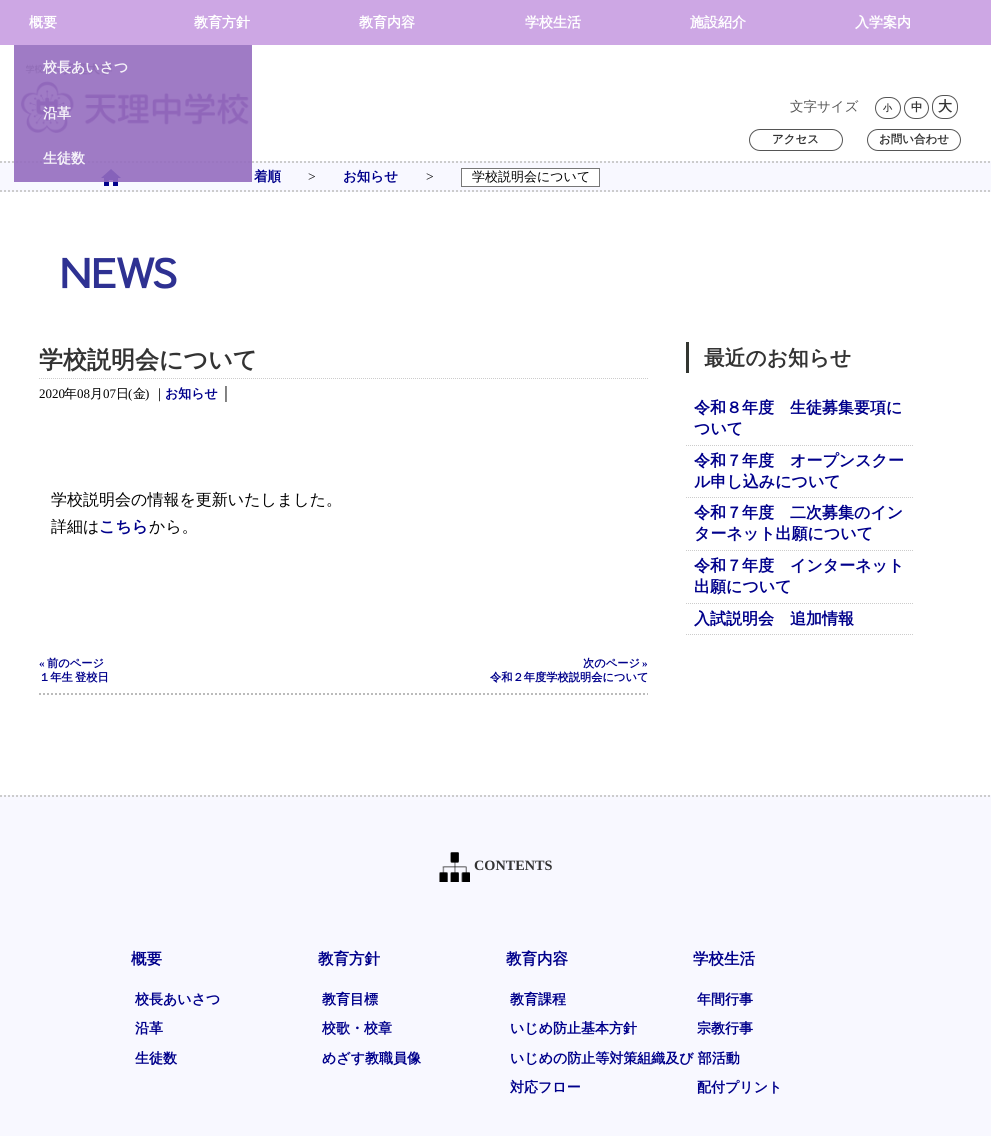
import math
import cairo


def use_color(cr, r, g, b):
  cr.set_source_rgb(r / 255, g / 255, b / 255)

def text(cr, x, y, s, family, size, color, bold=False, italic=False):
  cr.select_font_face(family, cairo.FONT_SLANT_ITALIC if italic else cairo.FONT_SLANT_NORMAL, cairo.FONT_WEIGHT_BOLD if bold else cairo.FONT_WEIGHT_NORMAL)
  cr.set_font_size(size)
  use_color(cr, *color)
  cr.move_to(x, y)
  cr.show_text(s)

def spaced_text(cr, x, y, s, letter, word):
  cr.move_to(x, y)
  for ch in s:
    cr.show_text(ch)
    cr.rel_move_to(letter + word * (ch == ' '), 0)

def box(cr, x, y, w, h, *color):
  use_color(cr, *color)
  cr.rectangle(x, y, w, h)
  cr.fill()

def round_rect(cr, x, y, w, h, r):
  cr.new_sub_path()
  for i, (u, v) in enumerate([(x + w - r, y + h - r), (x + r, y + h - r), (x + r, y + r), (x + w - r, y + r)]):
    cr.arc(u, v, r, i * math.pi / 2, (i + 1) * math.pi / 2)
  cr.close_path()

def picture(cr, path, x, y, w, h):
  cr.save()
  cr.set_source_surface(cairo.ImageSurface.create_from_png(path), x, y)
  cr.rectangle(x, y, w, h)
  cr.fill()
  cr.restore()

def draw(cr):
  use_color(cr, 255, 255, 255)
  cr.paint()
  box(cr, 0, 0, 991, 45, 205, 167, 228)
  picture(cr, "img_01.png", 20, 63, 229, 70)
  box(cr, 0, 161, 991, 31, 248, 248, 255)
  cr.new_path()
  cr.move_to(0, 162)
  cr.line_to(991, 162)
  use_color(cr, 204, 204, 204)
  cr.set_dash([2, 2])
  cr.stroke()
  picture(cr, "img_02.png", 101, 169, 20, 17)
  cr.set_source_rgba(0.584, 0.427, 0.749, 0.9)
  cr.rectangle(14, 45, 238, 137)
  cr.fill()
  round_rect(cr, 875.5, 97.5, 25, 21, 10.5)
  use_color(cr, 85, 85, 85)
  cr.set_line_width(1)
  cr.set_dash([])
  cr.stroke()
  round_rect(cr, 904.5, 97.5, 24, 21, 10.5)
  cr.stroke()
  round_rect(cr, 932.5, 95.5, 25, 23, 10.5)
  cr.stroke()
  round_rect(cr, 749.5, 129.5, 93, 21, 10.5)
  cr.stroke()
  round_rect(cr, 867.5, 129.5, 93, 21, 10.5)
  cr.stroke()
  cr.new_path()
  cr.move_to(0, 191)
  cr.line_to(991, 191)
  use_color(cr, 204, 204, 204)
  cr.set_line_width(2)
  cr.set_dash([2, 2])
  cr.stroke()
  use_color(cr, 255, 255, 255)
  cr.rectangle(461.5, 168.5, 138, 18)
  cr.fill_preserve()
  use_color(cr, 119, 119, 119)
  cr.set_line_width(1)
  cr.set_dash([])
  cr.stroke()
  cr.new_path()
  cr.move_to(39, 378.5)
  cr.line_to(648, 378.5)
  use_color(cr, 204, 204, 204)
  cr.set_dash([1, 1])
  cr.stroke()
  cr.new_path()
  cr.move_to(39, 694)
  cr.line_to(648, 694)
  use_color(cr, 187, 187, 187)
  cr.set_line_width(2)
  cr.set_dash([2, 2])
  cr.stroke()
  box(cr, 686, 342, 3, 31, 51, 54, 49)
  cr.new_path()
  cr.move_to(686, 445.5)
  cr.line_to(914, 445.5)
  use_color(cr, 204, 204, 204)
  cr.set_line_width(1)
  cr.set_dash([1, 1])
  cr.stroke()
  cr.new_path()
  cr.move_to(686, 497.5)
  cr.line_to(914, 497.5)
  cr.stroke()
  cr.new_path()
  cr.move_to(686, 550.5)
  cr.line_to(914, 550.5)
  cr.stroke()
  cr.new_path()
  cr.move_to(686, 603.5)
  cr.line_to(914, 603.5)
  cr.stroke()
  cr.new_path()
  cr.move_to(686, 634.5)
  cr.line_to(914, 634.5)
  cr.stroke()
  box(cr, 0, 795, 991, 341, 248, 248, 255)
  cr.new_path()
  cr.move_to(0, 796)
  cr.line_to(991, 796)
  use_color(cr, 204, 204, 204)
  cr.set_line_width(2)
  cr.set_dash([2, 2])
  cr.stroke()
  picture(cr, "img_03.png", 439, 852, 31, 30)
  text(cr, 29, 27, "概要", "WenQuanYi Zen Hei", 14, (255, 255, 255), bold=True)
  text(cr, 43, 72, "校長あいさつ", "WenQuanYi Zen Hei", 14, (245, 242, 249), bold=True)
  text(cr, 43, 118, "沿革", "WenQuanYi Zen Hei", 14, (245, 242, 249), bold=True)
  text(cr, 43, 163, "生徒数", "WenQuanYi Zen Hei", 14, (245, 242, 249), bold=True)
  text(cr, 194, 27, "教育方針", "WenQuanYi Zen Hei", 14, (255, 255, 255), bold=True)
  text(cr, 359, 27, "教育内容", "WenQuanYi Zen Hei", 14, (255, 255, 255), bold=True)
  text(cr, 525, 27, "学校生活", "WenQuanYi Zen Hei", 14, (255, 255, 255), bold=True)
  text(cr, 690, 27, "施設紹介", "WenQuanYi Zen Hei", 14, (255, 255, 255), bold=True)
  text(cr, 855, 27, "入学案内", "WenQuanYi Zen Hei", 14, (255, 255, 255), bold=True)
  text(cr, 790, 111, "文字サイズ", "WenQuanYi Zen Hei Medium", 13.5, (85, 85, 85))
  text(cr, 883, 111, "小", "WenQuanYi Zen Hei", 9, (51, 51, 51), bold=True)
  text(cr, 911, 111, "中", "WenQuanYi Zen Hei", 11.5, (51, 51, 51), bold=True)
  text(cr, 938, 111, "大", "WenQuanYi Zen Hei", 14, (51, 51, 51), bold=True)
  text(cr, 772, 143, "アクセス", "WenQuanYi Zen Hei", 11.5, (51, 51, 51), bold=True)
  text(cr, 879, 143, "お問い合わせ", "WenQuanYi Zen Hei", 11.5, (51, 51, 51), bold=True)
  text(cr, 254, 181, "着順", "WenQuanYi Zen Hei", 13.5, (0, 0, 139), bold=True)
  text(cr, 308, 181, ">", "Liberation Serif", 13.5, (0, 0, 0))
  text(cr, 343, 181, "お知らせ", "WenQuanYi Zen Hei", 13.5, (0, 0, 139), bold=True)
  text(cr, 426, 181, ">", "Liberation Serif", 13.5, (0, 0, 0))
  text(cr, 472, 181, "学校説明会について", "WenQuanYi Zen Hei Medium", 13, (0, 0, 0))
  text(cr, 60, 288, "NEWS", "Sawarabi Gothic", 40, (46, 49, 146), bold=True)
  text(cr, 39, 368, "学校説明会について", "WenQuanYi Zen Hei", 24, (51, 51, 51), bold=True)
  text(cr, 39, 398, "2020", "Liberation Serif", 13, (0, 0, 0))
  text(cr, 64, 398, "年", "WenQuanYi Zen Hei Medium", 13, (0, 0, 0))
  text(cr, 77, 398, "08", "Liberation Serif", 13, (0, 0, 0))
  text(cr, 90, 398, "月", "WenQuanYi Zen Hei Medium", 13, (0, 0, 0))
  text(cr, 103, 398, "07", "Liberation Serif", 13, (0, 0, 0))
  text(cr, 116, 398, "日", "WenQuanYi Zen Hei Medium", 13, (0, 0, 0))
  text(cr, 128, 398, "(", "Liberation Serif", 13, (0, 0, 0))
  text(cr, 133, 398, "金", "WenQuanYi Zen Hei Medium", 13, (0, 0, 0))
  text(cr, 145, 398, ")", "Liberation Serif", 13, (0, 0, 0))
  text(cr, 153, 398, "｜", "WenQuanYi Zen Hei Medium", 13, (0, 0, 0))
  text(cr, 165, 398, "お知らせ", "WenQuanYi Zen Hei", 13, (0, 0, 139), bold=True)
  text(cr, 218, 398, "｜", "WenQuanYi Zen Hei Medium", 16, (0, 0, 0))
  text(cr, 51, 505, "学校説明会の情報を更新いたしました。", "WenQuanYi Zen Hei Medium", 16, (0, 0, 0))
  text(cr, 51, 532, "詳細は", "WenQuanYi Zen Hei Medium", 16, (0, 0, 0))
  text(cr, 99, 532, "こちら", "WenQuanYi Zen Hei", 16, (0, 0, 139), bold=True)
  text(cr, 149, 532, "から。", "WenQuanYi Zen Hei Medium", 16, (0, 0, 0))
  text(cr, 39, 667, "«", "Liberation Serif", 11.25, (0, 0, 139), bold=True)
  text(cr, 47, 667, "前のページ", "WenQuanYi Zen Hei", 11.25, (0, 0, 139), bold=True)
  spaced_text(cr, 39, 681, "１年生 登校日", 0, -1)
  text(cr, 583, 667, "次のページ", "WenQuanYi Zen Hei", 11.25, (0, 0, 139), bold=True)
  text(cr, 642, 667, "»", "Liberation Serif", 11.25, (0, 0, 139), bold=True)
  text(cr, 490, 681, "令和２年度学校説明会について", "WenQuanYi Zen Hei", 11.25, (0, 0, 139), bold=True)
  text(cr, 704, 365, "最近のお知らせ", "WenQuanYi Zen Hei", 20.75, (51, 51, 51), bold=True)
  text(cr, 694, 413, "令和８年度　生徒募集要項に", "WenQuanYi Zen Hei", 16, (0, 0, 139), bold=True)
  text(cr, 694, 434, "ついて", "WenQuanYi Zen Hei", 16, (0, 0, 139), bold=True)
  text(cr, 694, 466, "令和７年度　オープンスクー", "WenQuanYi Zen Hei", 16, (0, 0, 139), bold=True)
  text(cr, 694, 487, "ル申し込みについて", "WenQuanYi Zen Hei", 16, (0, 0, 139), bold=True)
  text(cr, 694, 518, "令和７年度　二次募集のイン", "WenQuanYi Zen Hei", 16, (0, 0, 139), bold=True)
  text(cr, 694, 539, "ターネット出願について", "WenQuanYi Zen Hei", 16, (0, 0, 139), bold=True)
  text(cr, 694, 571, "令和７年度　インターネット", "WenQuanYi Zen Hei", 16, (0, 0, 139), bold=True)
  text(cr, 694, 592, "出願について", "WenQuanYi Zen Hei", 16, (0, 0, 139), bold=True)
  text(cr, 694, 624, "入試説明会　追加情報", "WenQuanYi Zen Hei", 16, (0, 0, 139), bold=True)
  text(cr, 474, 870, "CONTENTS", "Liberation Serif", 14.25, (51, 51, 51), bold=True)
  text(cr, 131, 964, "概要", "WenQuanYi Zen Hei", 15.5, (0, 0, 139), bold=True)
  text(cr, 135, 1004, "校長あいさつ", "WenQuanYi Zen Hei", 14, (0, 0, 139), bold=True)
  text(cr, 135, 1033, "沿革", "WenQuanYi Zen Hei", 14, (0, 0, 139), bold=True)
  text(cr, 135, 1063, "生徒数", "WenQuanYi Zen Hei", 14, (0, 0, 139), bold=True)
  text(cr, 318, 964, "教育方針", "WenQuanYi Zen Hei", 15.5, (0, 0, 139), bold=True)
  text(cr, 322, 1004, "教育目標", "WenQuanYi Zen Hei", 14, (0, 0, 139), bold=True)
  text(cr, 322, 1033, "校歌・校章", "WenQuanYi Zen Hei", 14, (0, 0, 139), bold=True)
  text(cr, 322, 1063, "めざす教職員像", "WenQuanYi Zen Hei", 14, (0, 0, 139), bold=True)
  text(cr, 506, 964, "教育内容", "WenQuanYi Zen Hei", 15.5, (0, 0, 139), bold=True)
  text(cr, 510, 1004, "教育課程", "WenQuanYi Zen Hei", 14, (0, 0, 139), bold=True)
  text(cr, 510, 1033, "いじめ防止基本方針", "WenQuanYi Zen Hei", 14, (0, 0, 139), bold=True)
  text(cr, 510, 1063, "いじめの防止等対策組織及び 部活動", "WenQuanYi Zen Hei", 14, (0, 0, 139), bold=True)
  text(cr, 510, 1092, "対応フロー", "WenQuanYi Zen Hei", 14, (0, 0, 139), bold=True)
  text(cr, 693, 964, "学校生活", "WenQuanYi Zen Hei", 15.5, (0, 0, 139), bold=True)
  text(cr, 697, 1004, "年間行事", "WenQuanYi Zen Hei", 14, (0, 0, 139), bold=True)
  text(cr, 697, 1033, "宗教行事", "WenQuanYi Zen Hei", 14, (0, 0, 139), bold=True)
  text(cr, 697, 1092, "配付プリント", "WenQuanYi Zen Hei", 14, (0, 0, 139), bold=True)


surface = cairo.ImageSurface(cairo.FORMAT_RGB24, 991, 1136)
cr = cairo.Context(surface)
options = cairo.FontOptions()
options.set_hint_metrics(cairo.HINT_METRICS_OFF)
options.set_hint_style(cairo.HINT_STYLE_NONE)
cr.set_font_options(options)
cr.set_miter_limit(4)
draw(cr)
surface.write_to_png("out.png")
